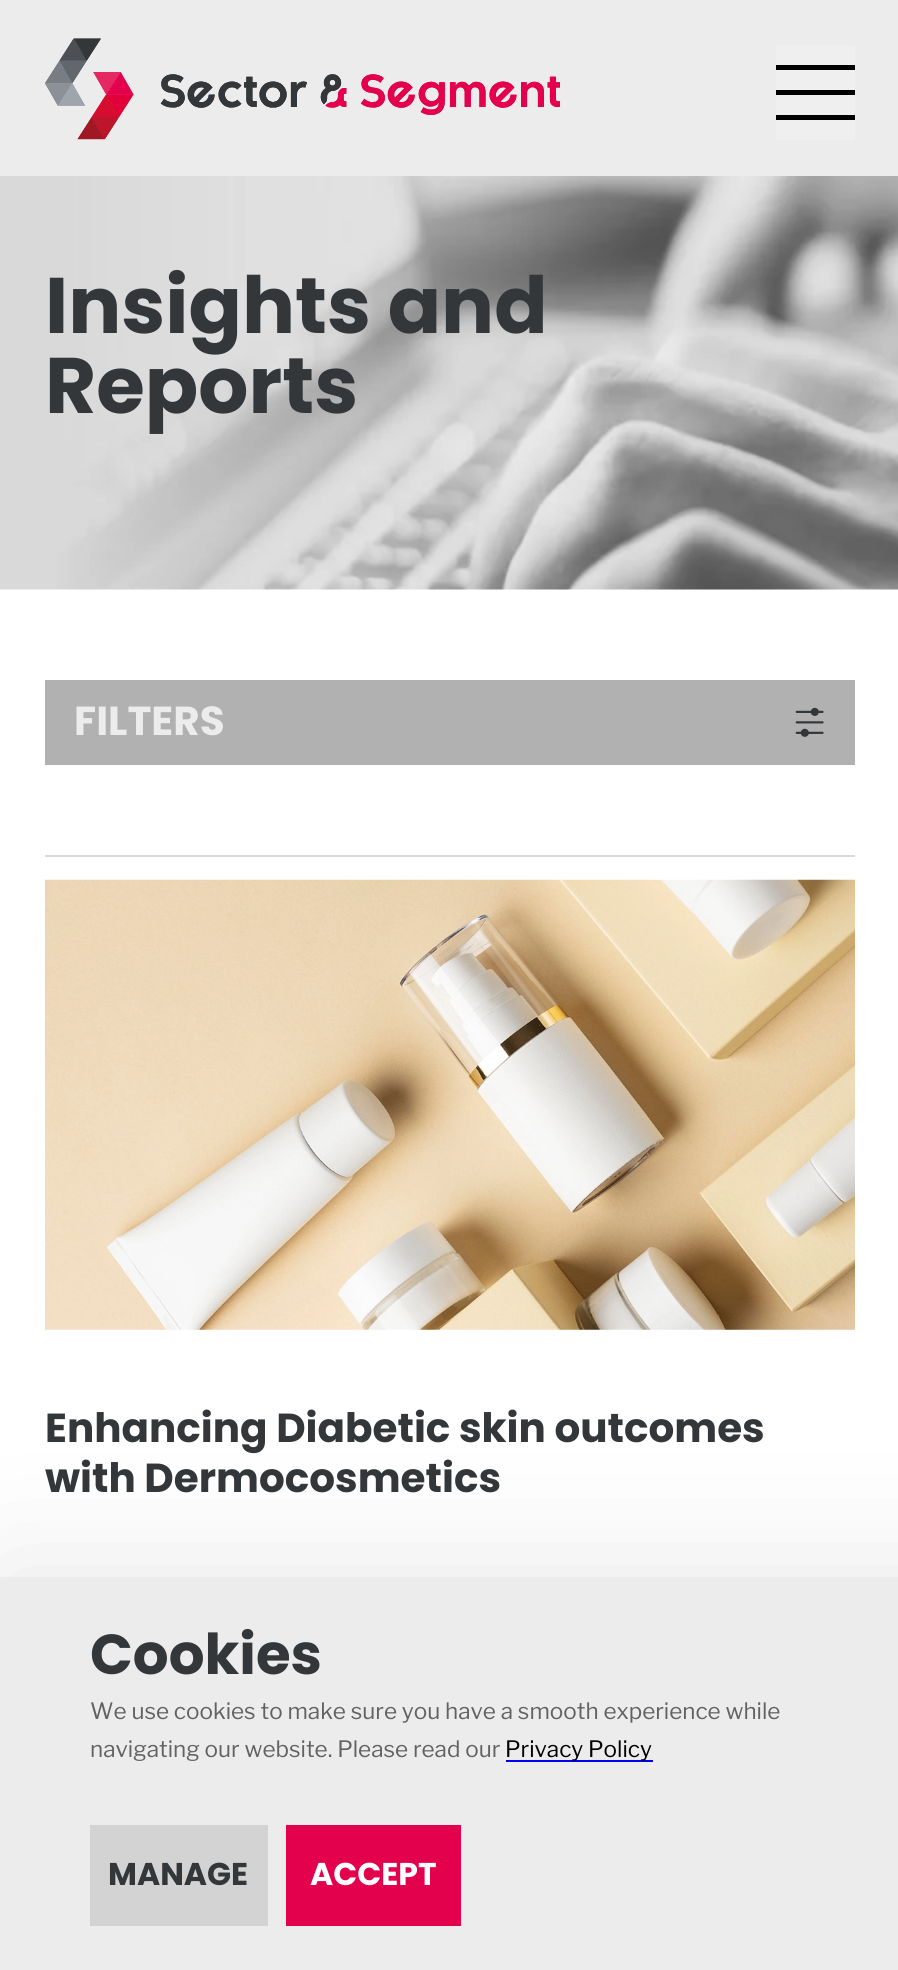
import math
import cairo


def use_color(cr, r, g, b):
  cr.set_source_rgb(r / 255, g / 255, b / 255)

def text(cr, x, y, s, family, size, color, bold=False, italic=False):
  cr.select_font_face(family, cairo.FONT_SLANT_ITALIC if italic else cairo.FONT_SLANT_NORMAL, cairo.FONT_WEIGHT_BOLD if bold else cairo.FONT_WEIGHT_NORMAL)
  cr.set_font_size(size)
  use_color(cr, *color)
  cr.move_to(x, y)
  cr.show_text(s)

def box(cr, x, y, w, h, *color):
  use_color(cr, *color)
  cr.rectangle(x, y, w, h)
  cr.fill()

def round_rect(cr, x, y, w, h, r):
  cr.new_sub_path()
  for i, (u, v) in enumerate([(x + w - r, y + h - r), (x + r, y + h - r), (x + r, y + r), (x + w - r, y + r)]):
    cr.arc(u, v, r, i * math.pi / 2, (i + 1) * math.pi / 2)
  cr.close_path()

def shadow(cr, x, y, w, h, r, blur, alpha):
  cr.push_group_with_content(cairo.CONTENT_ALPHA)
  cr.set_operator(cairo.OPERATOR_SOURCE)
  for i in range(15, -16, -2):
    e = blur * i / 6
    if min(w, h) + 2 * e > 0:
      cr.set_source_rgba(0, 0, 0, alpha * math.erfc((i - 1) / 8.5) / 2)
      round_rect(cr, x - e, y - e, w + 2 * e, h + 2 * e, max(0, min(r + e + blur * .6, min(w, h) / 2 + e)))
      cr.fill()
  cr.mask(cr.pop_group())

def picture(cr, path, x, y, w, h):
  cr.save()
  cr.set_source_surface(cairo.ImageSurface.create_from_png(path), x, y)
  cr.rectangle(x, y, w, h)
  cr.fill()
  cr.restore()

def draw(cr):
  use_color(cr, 255, 255, 255)
  cr.paint()
  box(cr, 0, 0, 898, 176, 236, 236, 236)
  picture(cr, "img_01.png", 45, 38, 515, 102)
  box(cr, 776, 45, 79, 95, 239, 239, 239)
  box(cr, 776, 65, 79, 5, 0, 0, 0)
  box(cr, 776, 90, 79, 5, 0, 0, 0)
  box(cr, 776, 115, 79, 5, 0, 0, 0)
  picture(cr, "img_02.png", 0, 176, 898, 414)
  box(cr, 45, 680, 810, 85, 177, 177, 177)
  picture(cr, "img_03.png", 795, 707, 29, 30)
  box(cr, 45, 855, 810, 2, 217, 217, 217)
  picture(cr, "img_04.png", 45, 879, 810, 451)
  use_color(cr, 0, 0, 0)
  shadow(cr, 0, 1577, 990, 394, 0, 67.5, 0.1)
  box(cr, 0, 1577, 898, 393, 236, 236, 236)
  box(cr, 506, 1760, 147, 2, 0, 0, 238)
  box(cr, 90, 1825, 178, 101, 211, 211, 211)
  box(cr, 286, 1825, 175, 101, 227, 0, 76)
  text(cr, 45, 333, "Insights and", "Poppins", 78.75, (51, 55, 57), bold=True)
  text(cr, 45, 413, "Reports", "Poppins", 78.75, (51, 55, 57), bold=True)
  text(cr, 74, 735, "FILTERS", "Poppins", 40.5, (236, 236, 236), bold=True)
  text(cr, 45, 1442, "Enhancing Diabetic skin outcomes", "Poppins", 40.5, (51, 55, 57), bold=True)
  text(cr, 45, 1492, "with Dermocosmetics", "Poppins", 40.5, (51, 55, 57), bold=True)
  text(cr, 90, 1674, "Cookies", "Poppins", 56.25, (51, 55, 57), bold=True)
  text(cr, 90, 1719, "We use cookies to make sure you have a smooth experience while", "Libre Franklin", 22.5, (98, 98, 98))
  text(cr, 90, 1757, "navigating our website. Please read our", "Libre Franklin", 22.5, (98, 98, 98))
  text(cr, 505, 1757, "Privacy Policy", "Libre Franklin", 22.5, (0, 0, 0))
  text(cr, 108, 1885, "MANAGE", "Poppins", 31.5, (51, 55, 57), bold=True)
  text(cr, 310, 1885, "ACCEPT", "Poppins", 31.5, (255, 255, 255), bold=True)


surface = cairo.ImageSurface(cairo.FORMAT_RGB24, 898, 1970)
cr = cairo.Context(surface)
options = cairo.FontOptions()
options.set_hint_metrics(cairo.HINT_METRICS_OFF)
options.set_hint_style(cairo.HINT_STYLE_NONE)
cr.set_font_options(options)
cr.set_miter_limit(4)
draw(cr)
surface.write_to_png("out.png")
